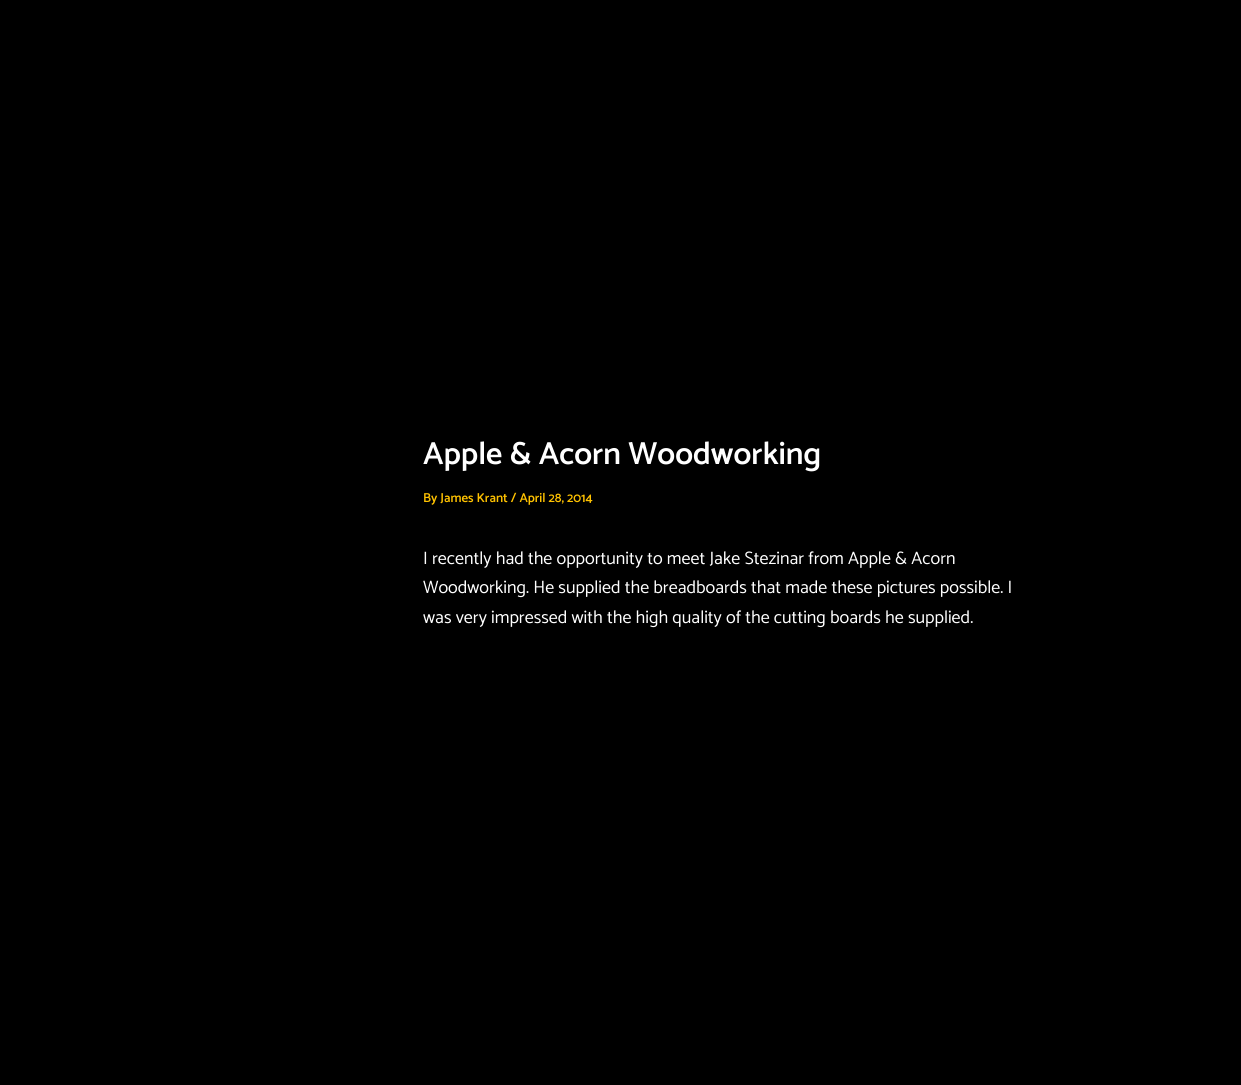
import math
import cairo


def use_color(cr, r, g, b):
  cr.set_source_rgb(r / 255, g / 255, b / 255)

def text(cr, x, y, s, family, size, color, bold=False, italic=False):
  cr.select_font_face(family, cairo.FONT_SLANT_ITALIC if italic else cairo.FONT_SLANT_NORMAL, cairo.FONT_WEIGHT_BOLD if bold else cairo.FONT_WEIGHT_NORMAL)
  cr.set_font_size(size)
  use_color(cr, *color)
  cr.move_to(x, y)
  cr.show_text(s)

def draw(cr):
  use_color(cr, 0, 0, 0)
  cr.paint()
  text(cr, 423, 464, "Apple & Acorn Woodworking", "Catamaran SemiBold", 32, (255, 255, 255))
  text(cr, 423, 502, "By James Krant / April 28, 2014", "Catamaran SemiBold", 13, (255, 194, 0))
  text(cr, 423, 564, "I recently had the opportunity to meet Jake Stezinar from Apple & Acorn", "Catamaran", 18, (255, 255, 255))
  text(cr, 423, 593, "Woodworking. He supplied the breadboards that made these pictures possible. I", "Catamaran", 18, (255, 255, 255))
  text(cr, 423, 623, "was very impressed with the high quality of the cutting boards he supplied.", "Catamaran", 18, (255, 255, 255))


surface = cairo.ImageSurface(cairo.FORMAT_RGB24, 1241, 1085)
cr = cairo.Context(surface)
options = cairo.FontOptions()
options.set_hint_metrics(cairo.HINT_METRICS_OFF)
options.set_hint_style(cairo.HINT_STYLE_NONE)
cr.set_font_options(options)
cr.set_miter_limit(4)
draw(cr)
surface.write_to_png("out.png")
